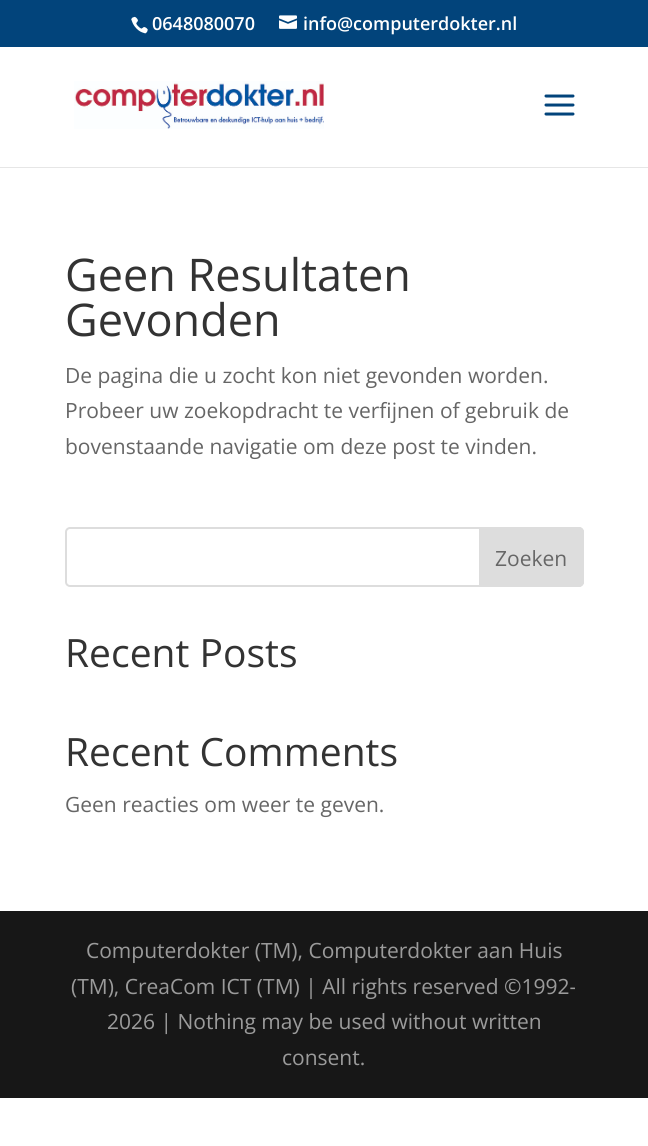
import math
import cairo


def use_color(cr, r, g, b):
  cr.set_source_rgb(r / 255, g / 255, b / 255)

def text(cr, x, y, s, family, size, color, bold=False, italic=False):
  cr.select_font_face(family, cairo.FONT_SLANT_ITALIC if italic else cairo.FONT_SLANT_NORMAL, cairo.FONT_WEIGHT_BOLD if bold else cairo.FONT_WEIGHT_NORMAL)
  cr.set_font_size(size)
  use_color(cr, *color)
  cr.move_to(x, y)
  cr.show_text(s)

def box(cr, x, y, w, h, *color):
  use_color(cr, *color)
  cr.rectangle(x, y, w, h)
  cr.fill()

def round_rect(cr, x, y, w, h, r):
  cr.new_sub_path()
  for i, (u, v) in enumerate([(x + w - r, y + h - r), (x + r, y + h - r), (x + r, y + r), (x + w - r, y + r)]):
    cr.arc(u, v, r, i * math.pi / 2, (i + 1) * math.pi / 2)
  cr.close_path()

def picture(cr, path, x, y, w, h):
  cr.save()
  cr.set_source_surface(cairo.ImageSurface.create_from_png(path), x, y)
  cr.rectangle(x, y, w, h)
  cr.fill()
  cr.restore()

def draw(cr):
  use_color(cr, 255, 255, 255)
  cr.paint()
  box(cr, 0, 0, 648, 47, 2, 68, 123)
  picture(cr, "img_01.png", 131, 16, 17, 18)
  picture(cr, "img_02.png", 279, 15, 18, 14)
  box(cr, 0, 167, 648, 1, 230, 230, 230)
  picture(cr, "img_03.png", 74, 81, 250, 48)
  picture(cr, "img_04.png", 544, 94, 31, 22)
  round_rect(cr, 66, 528, 517, 58, 4)
  use_color(cr, 221, 221, 221)
  cr.stroke()
  cr.new_path()
  cr.move_to(480, 528)
  cr.line_to(579, 528)
  cr.curve_to(581, 528, 583, 530, 583, 532)
  cr.line_to(583, 582)
  cr.curve_to(583, 584, 581, 586, 579, 586)
  cr.line_to(480, 586)
  cr.close_path()
  cr.fill_preserve()
  cr.stroke()
  box(cr, 0, 911, 648, 187, 23, 23, 23)
  text(cr, 152, 30, "0648080070", "Open Sans SemiBold", 18, (255, 255, 255))
  text(cr, 303, 30, "info@computerdokter.nl", "Open Sans SemiBold", 18, (255, 255, 255))
  text(cr, 65, 291, "Geen Resultaten", "Open Sans", 45, (51, 51, 51))
  text(cr, 65, 336, "Gevonden", "Open Sans", 45, (51, 51, 51))
  text(cr, 65, 383, "De pagina die u zocht kon niet gevonden worden.", "Open Sans", 21, (102, 102, 102))
  text(cr, 65, 418, "Probeer uw zoekopdracht te verfijnen of gebruik de", "Open Sans", 21, (102, 102, 102))
  text(cr, 65, 454, "bovenstaande navigatie om deze post te vinden.", "Open Sans", 21, (102, 102, 102))
  text(cr, 495, 566, "Zoeken", "Open Sans", 21, (102, 102, 102))
  text(cr, 65, 667, "Recent Posts", "Open Sans", 39, (51, 51, 51))
  text(cr, 65, 766, "Recent Comments", "Open Sans", 39, (51, 51, 51))
  text(cr, 65, 812, "Geen reacties om weer te geven.", "Open Sans", 21, (102, 102, 102))
  text(cr, 86, 958, "Computerdokter (TM), Computerdokter aan Huis", "Open Sans", 21, (155, 155, 155))
  text(cr, 71, 994, "(TM), CreaCom ICT (TM) | All rights reserved ©1992-", "Open Sans", 21, (155, 155, 155))
  text(cr, 107, 1029, "2026 | Nothing may be used without written", "Open Sans", 21, (155, 155, 155))
  text(cr, 282, 1065, "consent.", "Open Sans", 21, (155, 155, 155))


surface = cairo.ImageSurface(cairo.FORMAT_RGB24, 648, 1146)
cr = cairo.Context(surface)
options = cairo.FontOptions()
options.set_hint_metrics(cairo.HINT_METRICS_OFF)
options.set_hint_style(cairo.HINT_STYLE_NONE)
cr.set_font_options(options)
cr.set_miter_limit(4)
draw(cr)
surface.write_to_png("out.png")
